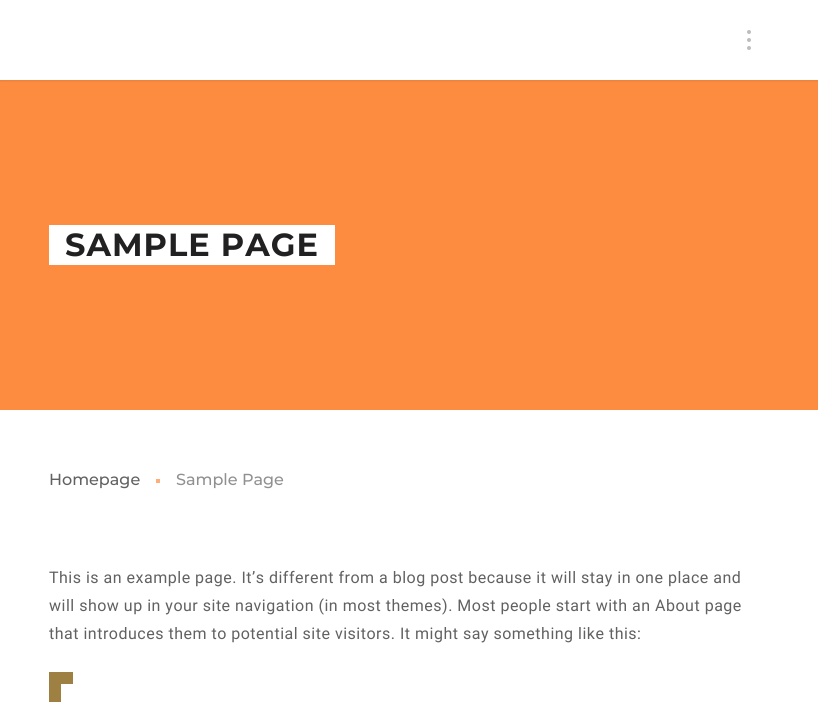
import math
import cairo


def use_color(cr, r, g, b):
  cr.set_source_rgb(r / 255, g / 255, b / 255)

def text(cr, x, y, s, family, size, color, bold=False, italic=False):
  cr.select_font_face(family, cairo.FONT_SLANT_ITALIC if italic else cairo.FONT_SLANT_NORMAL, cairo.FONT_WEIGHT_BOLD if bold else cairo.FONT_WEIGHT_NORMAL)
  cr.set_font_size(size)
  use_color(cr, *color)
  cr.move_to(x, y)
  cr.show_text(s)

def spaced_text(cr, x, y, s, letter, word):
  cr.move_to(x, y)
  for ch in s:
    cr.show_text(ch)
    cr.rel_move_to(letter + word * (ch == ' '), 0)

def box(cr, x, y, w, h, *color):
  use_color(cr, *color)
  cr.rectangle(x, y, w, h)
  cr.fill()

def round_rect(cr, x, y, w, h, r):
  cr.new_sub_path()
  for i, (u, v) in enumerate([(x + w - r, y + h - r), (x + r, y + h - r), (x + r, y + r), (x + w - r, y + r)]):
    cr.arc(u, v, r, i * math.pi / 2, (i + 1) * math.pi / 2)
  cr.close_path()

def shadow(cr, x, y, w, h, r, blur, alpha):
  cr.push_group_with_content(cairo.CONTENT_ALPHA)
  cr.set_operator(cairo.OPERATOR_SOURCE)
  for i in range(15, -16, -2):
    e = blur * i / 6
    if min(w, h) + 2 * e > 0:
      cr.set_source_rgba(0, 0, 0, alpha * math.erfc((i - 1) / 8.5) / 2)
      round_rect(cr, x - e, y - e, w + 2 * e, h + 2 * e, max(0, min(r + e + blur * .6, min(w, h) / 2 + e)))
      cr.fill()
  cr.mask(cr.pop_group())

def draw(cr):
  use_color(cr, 255, 255, 255)
  cr.paint()
  box(cr, 0, 80, 818, 330, 253, 140, 64)
  cr.save()
  cr.rectangle(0, 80, 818, 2)
  cr.clip()
  use_color(cr, 0, 0, 0)
  shadow(cr, 0, 1, 818, 80, 0, 1.5, 0.1)
  cr.restore()
  use_color(cr, 189, 189, 189)
  cr.arc(749, 40, 2, 0, 2 * math.pi)
  cr.fill()
  cr.arc(749, 32, 2, 0, 2 * math.pi)
  cr.fill()
  cr.arc(749, 48, 2, 0, 2 * math.pi)
  cr.fill()
  box(cr, 49, 225, 286, 40, 255, 255, 255)
  box(cr, 156, 479, 4, 4, 254, 175, 121)
  box(cr, 49, 672, 24, 12, 158, 128, 66)
  box(cr, 49, 684, 12, 18, 158, 128, 66)
  cr.select_font_face("Montserrat", cairo.FONT_SLANT_NORMAL, cairo.FONT_WEIGHT_BOLD)
  cr.set_font_size(32)
  use_color(cr, 33, 33, 33)
  spaced_text(cr, 65, 256, "SAMPLE PAGE", 1, 0)
  text(cr, 49, 485, "Homepage", "Montserrat Medium", 16, (97, 97, 97))
  text(cr, 176, 485, "Sample Page", "Montserrat Medium", 16, (144, 144, 144))
  cr.select_font_face("Roboto")
  use_color(cr, 97, 97, 97)
  spaced_text(cr, 49, 583, "This is an example page. It’s different from a blog post because it will stay in one place and", 0.5, 0)
  spaced_text(cr, 49, 611, "will show up in your site navigation (in most themes). Most people start with an About page", 0.5, 0)
  spaced_text(cr, 49, 639, "that introduces them to potential site visitors. It might say something like this:", 0.5, 0)


surface = cairo.ImageSurface(cairo.FORMAT_RGB24, 818, 702)
cr = cairo.Context(surface)
options = cairo.FontOptions()
options.set_hint_metrics(cairo.HINT_METRICS_OFF)
options.set_hint_style(cairo.HINT_STYLE_NONE)
cr.set_font_options(options)
cr.set_miter_limit(4)
draw(cr)
surface.write_to_png("out.png")
